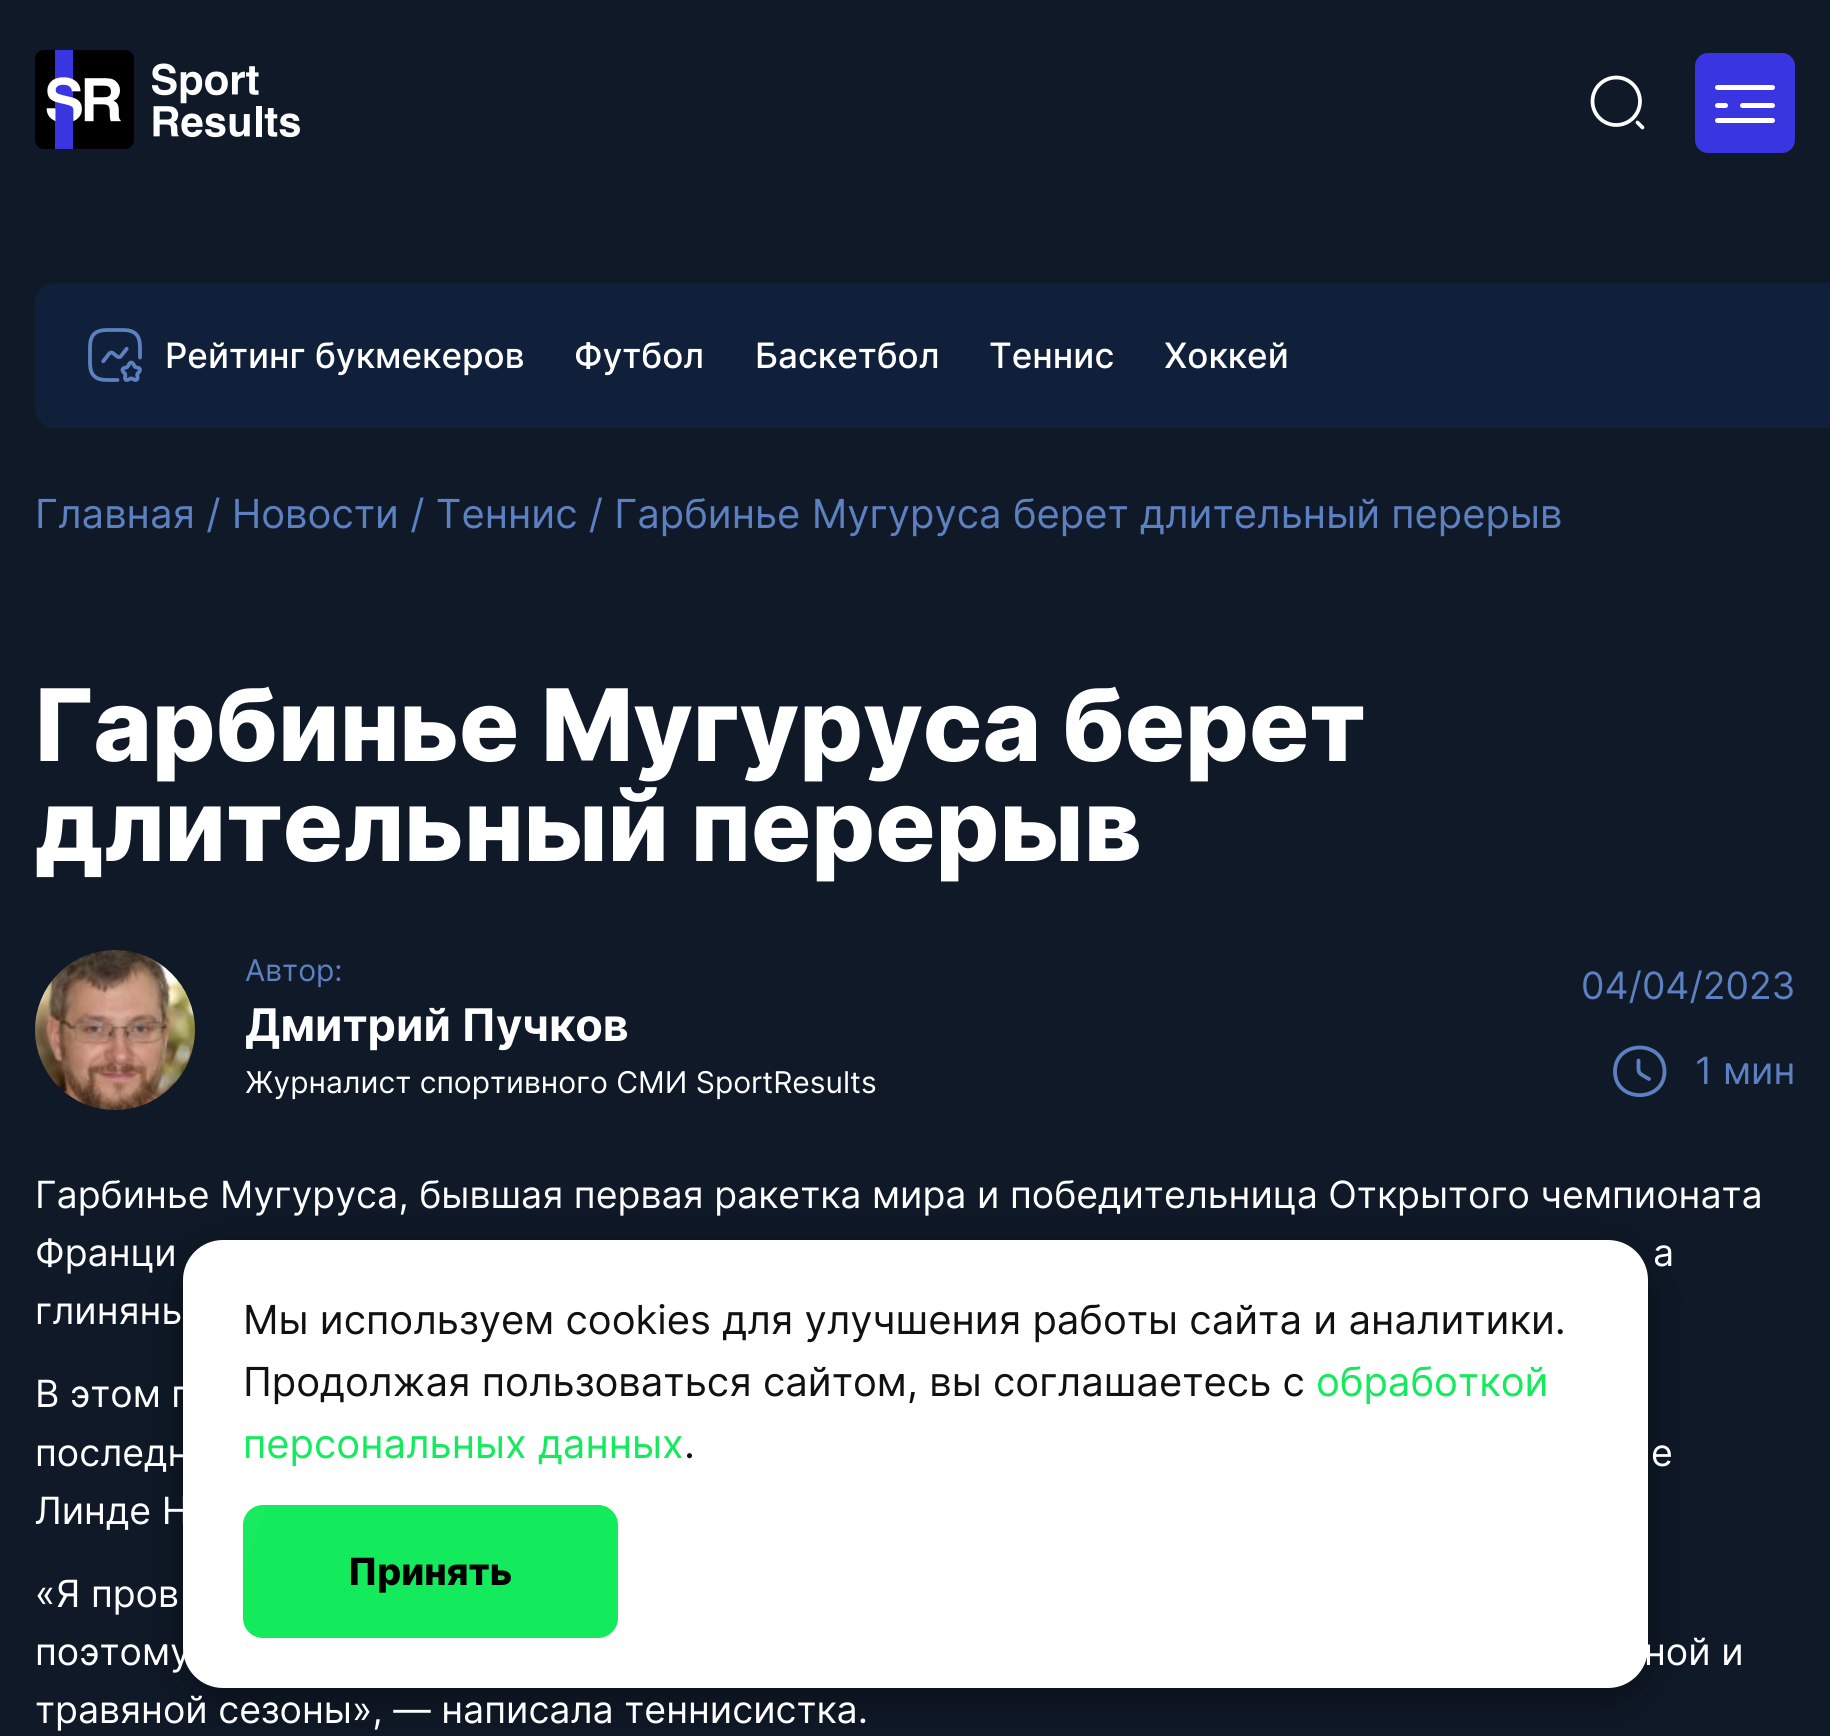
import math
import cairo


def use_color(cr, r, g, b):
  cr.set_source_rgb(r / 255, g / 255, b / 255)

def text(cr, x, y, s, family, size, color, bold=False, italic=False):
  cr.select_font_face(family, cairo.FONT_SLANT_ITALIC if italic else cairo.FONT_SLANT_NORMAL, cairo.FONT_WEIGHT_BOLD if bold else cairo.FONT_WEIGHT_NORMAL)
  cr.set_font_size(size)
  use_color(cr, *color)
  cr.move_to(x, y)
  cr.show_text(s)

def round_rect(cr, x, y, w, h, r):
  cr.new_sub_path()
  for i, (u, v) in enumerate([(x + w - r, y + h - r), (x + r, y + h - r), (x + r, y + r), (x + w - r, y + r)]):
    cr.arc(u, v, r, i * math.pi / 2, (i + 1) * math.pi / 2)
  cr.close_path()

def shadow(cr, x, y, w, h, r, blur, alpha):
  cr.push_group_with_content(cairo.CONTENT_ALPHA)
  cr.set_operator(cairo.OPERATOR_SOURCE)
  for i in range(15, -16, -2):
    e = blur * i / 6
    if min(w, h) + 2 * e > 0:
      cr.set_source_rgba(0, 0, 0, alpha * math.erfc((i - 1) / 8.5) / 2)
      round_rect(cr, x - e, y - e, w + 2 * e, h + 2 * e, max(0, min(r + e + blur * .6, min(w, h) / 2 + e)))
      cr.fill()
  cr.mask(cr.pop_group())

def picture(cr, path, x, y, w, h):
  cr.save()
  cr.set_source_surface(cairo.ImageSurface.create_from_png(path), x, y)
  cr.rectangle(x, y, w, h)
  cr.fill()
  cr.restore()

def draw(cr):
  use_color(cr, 15, 25, 40)
  cr.paint()
  picture(cr, "img_01.png", 35, 50, 265, 99)
  picture(cr, "img_02.png", 1590, 75, 55, 55)
  use_color(cr, 56, 53, 225)
  round_rect(cr, 1695, 53, 100, 100, 13)
  cr.fill()
  use_color(cr, 255, 255, 255)
  round_rect(cr, 1715, 85, 60, 5, 2.5)
  cr.fill()
  round_rect(cr, 1715, 103, 13, 5, 2.5)
  cr.fill()
  round_rect(cr, 1740, 103, 35, 5, 2.5)
  cr.fill()
  round_rect(cr, 1715, 118, 60, 5, 2.5)
  cr.fill()
  use_color(cr, 17, 32, 58)
  cr.new_path()
  cr.move_to(55, 283)
  cr.line_to(1830, 283)
  cr.line_to(1830, 428)
  cr.line_to(55, 428)
  cr.curve_to(44, 428, 35, 419, 35, 408)
  cr.line_to(35, 303)
  cr.curve_to(35, 292, 44, 283, 55, 283)
  cr.close_path()
  cr.fill()
  picture(cr, "img_03.png", 88, 328, 54, 54)
  picture(cr, "img_04.png", 35, 950, 160, 160)
  cr.new_path()
  cr.move_to(1664.5, 1071.5)
  cr.curve_to(1664.5, 1103, 1615, 1103, 1615, 1071.5)
  cr.curve_to(1615, 1039.5, 1664.5, 1039.5, 1664.5, 1071.5)
  cr.close_path()
  cr.move_to(1649, 1079)
  cr.curve_to(1637, 1072, 1638.5, 1074.5, 1638.5, 1060.5)
  use_color(cr, 93, 128, 193)
  cr.set_line_width(3.8)
  cr.set_line_cap(cairo.LINE_CAP_ROUND)
  cr.set_line_join(cairo.LINE_JOIN_ROUND)
  cr.stroke()
  use_color(cr, 0, 0, 0)
  shadow(cr, 183, 1250, 1465, 448, 40, 25, 0.4)
  use_color(cr, 255, 255, 255)
  round_rect(cr, 183, 1240, 1465, 448, 40)
  cr.fill()
  use_color(cr, 19, 235, 92)
  round_rect(cr, 243, 1505, 375, 133, 20)
  cr.fill()
  gradient = cairo.LinearGradient(-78, 1473, 189, 1669)
  gradient.add_color_stop_rgba(0, 1, 1, 1, 0.4)
  gradient.add_color_stop_rgba(0.5, 1, 1, 1, 0.1)
  gradient.add_color_stop_rgba(1, 1, 1, 1, 0)
  cr.set_source(gradient)
  cr.new_path()
  cr.move_to(263, 1505)
  cr.curve_to(252, 1505, 243, 1514, 243, 1525)
  cr.line_to(243, 1572)
  cr.line_to(267, 1505)
  cr.close_path()
  cr.fill()
  text(cr, 165, 368, "Рейтинг букмекеров", "Inter Medium", 35, (255, 255, 255))
  text(cr, 574, 368, "Футбол", "Inter Medium", 35, (255, 255, 255))
  text(cr, 755, 368, "Баскетбол", "Inter Medium", 35, (255, 255, 255))
  text(cr, 989, 368, "Теннис", "Inter Medium", 35, (255, 255, 255))
  text(cr, 1164, 368, "Хоккей", "Inter Medium", 35, (255, 255, 255))
  text(cr, 35, 528, "Главная / Новости / Теннис / Гарбинье Мугуруса берет длительный перерыв", "Inter", 40, (93, 128, 193))
  text(cr, 35, 761, "Гарбинье Мугуруса берет", "Inter ExtraBold", 100, (255, 255, 255))
  text(cr, 35, 861, "длительный перерыв", "Inter ExtraBold", 100, (255, 255, 255))
  text(cr, 245, 981, "Автор:", "Inter", 30, (93, 128, 193))
  text(cr, 245, 1041, "Дмитрий Пучков", "Inter", 45, (255, 255, 255), bold=True)
  text(cr, 245, 1093, "Журналист спортивного СМИ SportResults", "Inter", 30, (255, 255, 255))
  text(cr, 1581, 999, "04/04/2023", "Inter", 37.5, (93, 128, 193))
  text(cr, 1695, 1084, "1 мин", "Inter", 37.5, (93, 128, 193))
  text(cr, 35, 1208, "Гарбинье Мугуруса, бывшая первая ракетка мира и победительница Открытого чемпионата", "Inter", 37.5, (255, 255, 255))
  text(cr, 35, 1266, "Франци", "Inter", 37.5, (255, 255, 255))
  text(cr, 1653, 1266, "а", "Inter", 37.5, (255, 255, 255))
  text(cr, 35, 1324, "глиняны", "Inter", 37.5, (255, 255, 255))
  text(cr, 35, 1407, "В этом г", "Inter", 37.5, (255, 255, 255))
  text(cr, 35, 1466, "последн", "Inter", 37.5, (255, 255, 255))
  text(cr, 1651, 1466, "е", "Inter", 37.5, (255, 255, 255))
  text(cr, 35, 1524, "Линде Н", "Inter", 37.5, (255, 255, 255))
  text(cr, 35, 1607, "«Я пров", "Inter", 37.5, (255, 255, 255))
  text(cr, 35, 1665, "поэтому", "Inter", 37.5, (255, 255, 255))
  text(cr, 1644, 1665, "ной и", "Inter", 37.5, (255, 255, 255))
  text(cr, 35, 1723, "травяной сезоны», — написала теннисистка.", "Inter", 37.5, (255, 255, 255))
  text(cr, 243, 1334, "Мы используем cookies для улучшения работы сайта и аналитики.", "Inter", 40, (17, 17, 17))
  text(cr, 243, 1396, "Продолжая пользоваться сайтом, вы соглашаетесь с", "Inter", 40, (17, 17, 17))
  text(cr, 1316, 1396, "обработкой", "Inter", 40, (19, 235, 92))
  text(cr, 243, 1458, "персональных данных", "Inter", 40, (19, 235, 92))
  text(cr, 684, 1458, ".", "Inter", 40, (17, 17, 17))
  text(cr, 348, 1585, "Принять", "Inter ExtraBold", 37.5, (0, 0, 0))


surface = cairo.ImageSurface(cairo.FORMAT_RGB24, 1830, 1736)
cr = cairo.Context(surface)
options = cairo.FontOptions()
options.set_hint_metrics(cairo.HINT_METRICS_OFF)
options.set_hint_style(cairo.HINT_STYLE_NONE)
cr.set_font_options(options)
cr.set_miter_limit(4)
draw(cr)
surface.write_to_png("out.png")
